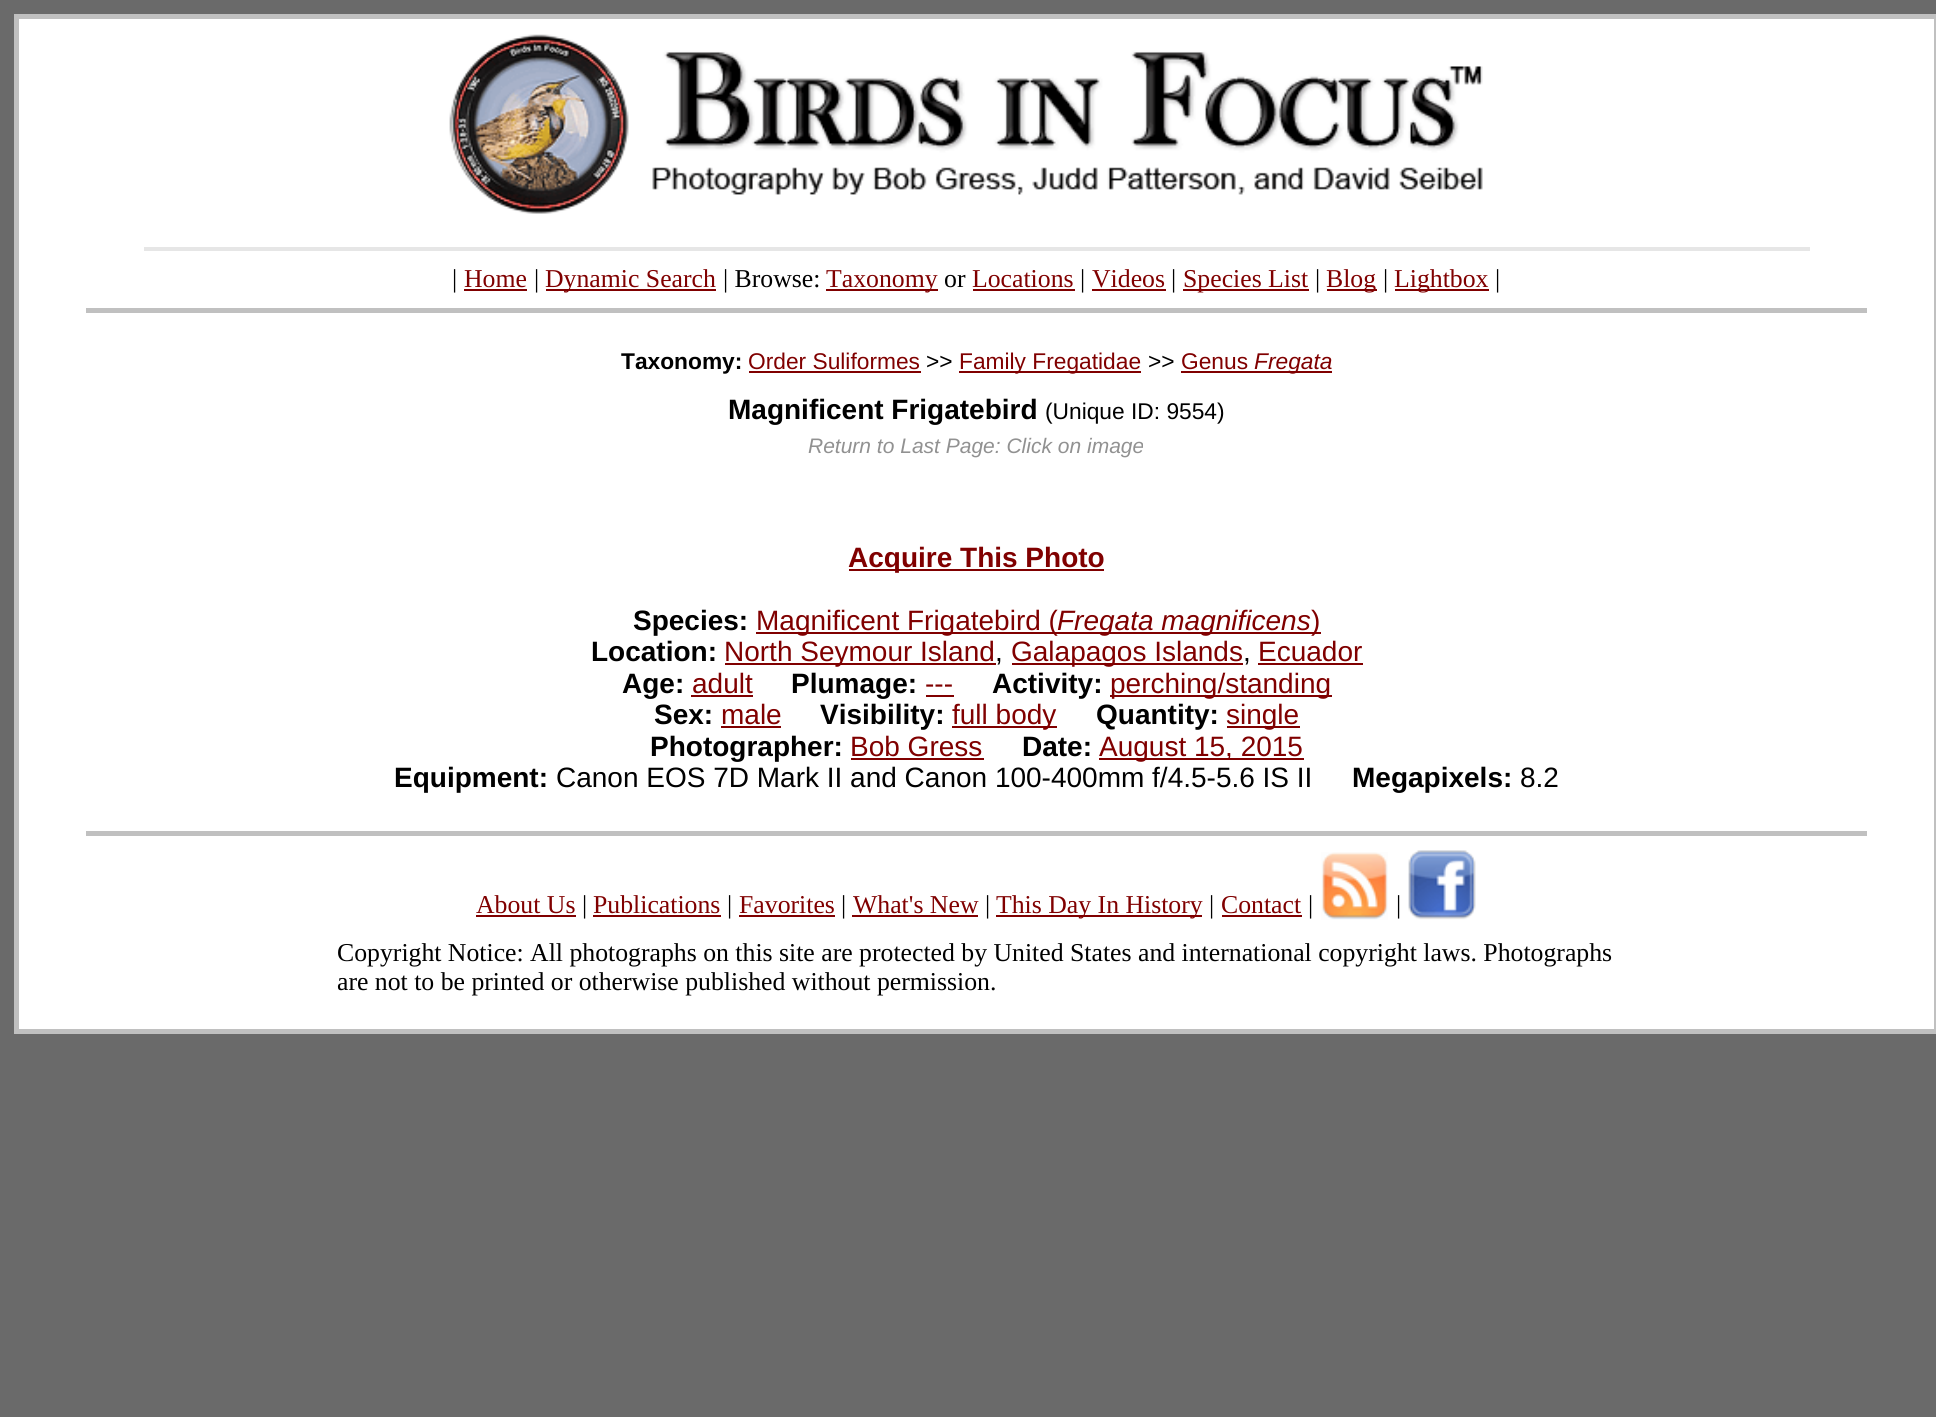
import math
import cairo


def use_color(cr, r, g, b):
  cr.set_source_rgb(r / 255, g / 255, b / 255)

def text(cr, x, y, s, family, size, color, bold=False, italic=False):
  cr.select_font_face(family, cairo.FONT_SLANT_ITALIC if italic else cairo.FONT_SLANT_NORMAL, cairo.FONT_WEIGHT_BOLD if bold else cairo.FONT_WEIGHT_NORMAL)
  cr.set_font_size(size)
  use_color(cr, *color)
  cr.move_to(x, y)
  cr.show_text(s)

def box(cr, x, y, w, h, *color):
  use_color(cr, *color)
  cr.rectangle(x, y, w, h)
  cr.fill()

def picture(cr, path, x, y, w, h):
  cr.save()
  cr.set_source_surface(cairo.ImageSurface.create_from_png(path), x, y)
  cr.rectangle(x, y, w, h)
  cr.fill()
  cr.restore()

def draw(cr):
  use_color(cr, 106, 106, 106)
  cr.paint()
  box(cr, 19, 19, 1915, 1010, 255, 255, 255)
  box(cr, 14, 14, 1922, 5, 192, 192, 192)
  box(cr, 1934, 14, 2, 1020, 192, 192, 192)
  box(cr, 14, 1029, 1922, 5, 192, 192, 192)
  box(cr, 14, 14, 5, 1020, 192, 192, 192)
  picture(cr, "img_01.png", 449, 34, 1034, 180)
  box(cr, 144, 247, 1666, 4, 230, 230, 230)
  box(cr, 464, 289, 63, 2, 128, 0, 0)
  box(cr, 546, 289, 170, 2, 128, 0, 0)
  box(cr, 826, 289, 112, 2, 128, 0, 0)
  box(cr, 973, 289, 102, 2, 128, 0, 0)
  box(cr, 1092, 289, 74, 2, 128, 0, 0)
  box(cr, 1183, 289, 126, 2, 128, 0, 0)
  box(cr, 1327, 289, 50, 2, 128, 0, 0)
  box(cr, 1395, 289, 94, 2, 128, 0, 0)
  box(cr, 86, 308, 1781, 5, 192, 192, 192)
  box(cr, 749, 371, 172, 2, 128, 0, 0)
  box(cr, 959, 371, 182, 2, 128, 0, 0)
  box(cr, 1181, 371, 151, 2, 128, 0, 0)
  box(cr, 849, 569, 255, 2, 128, 0, 0)
  box(cr, 756, 632, 301, 2, 128, 0, 0)
  box(cr, 1057, 632, 264, 2, 128, 0, 0)
  box(cr, 725, 663, 271, 2, 128, 0, 0)
  box(cr, 1012, 663, 231, 2, 128, 0, 0)
  box(cr, 1258, 663, 105, 2, 128, 0, 0)
  box(cr, 691, 695, 62, 2, 128, 0, 0)
  box(cr, 926, 695, 28, 2, 128, 0, 0)
  box(cr, 1110, 695, 222, 2, 128, 0, 0)
  box(cr, 721, 726, 60, 2, 128, 0, 0)
  box(cr, 952, 726, 105, 2, 128, 0, 0)
  box(cr, 1227, 726, 73, 2, 128, 0, 0)
  box(cr, 851, 758, 133, 2, 128, 0, 0)
  box(cr, 1099, 758, 205, 2, 128, 0, 0)
  box(cr, 86, 831, 1781, 5, 192, 192, 192)
  box(cr, 476, 915, 100, 2, 128, 0, 0)
  box(cr, 593, 915, 128, 2, 128, 0, 0)
  box(cr, 739, 915, 96, 2, 128, 0, 0)
  box(cr, 852, 915, 126, 2, 128, 0, 0)
  box(cr, 996, 915, 206, 2, 128, 0, 0)
  box(cr, 1222, 915, 80, 2, 128, 0, 0)
  picture(cr, "img_02.png", 1321, 852, 67, 68)
  picture(cr, "img_03.png", 1408, 850, 68, 70)
  text(cr, 452, 287, "|", "Liberation Serif", 25.75, (0, 0, 0))
  text(cr, 464, 287, "Home", "Liberation Serif", 25.75, (128, 0, 0))
  text(cr, 534, 287, "|", "Liberation Serif", 25.75, (0, 0, 0))
  text(cr, 545, 287, "Dynamic Search", "Liberation Serif", 25.75, (128, 0, 0))
  text(cr, 723, 287, "| Browse:", "Liberation Serif", 25.75, (0, 0, 0))
  text(cr, 826, 287, "Taxonomy", "Liberation Serif", 25.75, (128, 0, 0))
  text(cr, 944, 287, "or", "Liberation Serif", 25.75, (0, 0, 0))
  text(cr, 972, 287, "Locations", "Liberation Serif", 25.75, (128, 0, 0))
  text(cr, 1080, 287, "|", "Liberation Serif", 25.75, (0, 0, 0))
  text(cr, 1092, 287, "Videos", "Liberation Serif", 25.75, (128, 0, 0))
  text(cr, 1171, 287, "|", "Liberation Serif", 25.75, (0, 0, 0))
  text(cr, 1183, 287, "Species List", "Liberation Serif", 25.75, (128, 0, 0))
  text(cr, 1315, 287, "|", "Liberation Serif", 25.75, (0, 0, 0))
  text(cr, 1326, 287, "Blog", "Liberation Serif", 25.75, (128, 0, 0))
  text(cr, 1383, 287, "|", "Liberation Serif", 25.75, (0, 0, 0))
  text(cr, 1394, 287, "Lightbox", "Liberation Serif", 25.75, (128, 0, 0))
  text(cr, 1495, 287, "|", "Liberation Serif", 25.75, (0, 0, 0))
  text(cr, 621, 369, "Taxonomy:", "Liberation Sans", 22.75, (0, 0, 0), bold=True)
  text(cr, 748, 369, "Order Suliformes", "Liberation Sans", 22.75, (128, 0, 0))
  text(cr, 926, 369, ">>", "Liberation Sans", 22.75, (0, 0, 0))
  text(cr, 959, 369, "Family Fregatidae", "Liberation Sans", 22.75, (128, 0, 0))
  text(cr, 1148, 369, ">>", "Liberation Sans", 22.75, (0, 0, 0))
  text(cr, 1181, 369, "Genus", "Liberation Sans", 22.75, (128, 0, 0))
  text(cr, 1254, 369, "Fregata", "Liberation Sans", 22.75, (128, 0, 0), italic=True)
  text(cr, 728, 419, "Magnificent Frigatebird", "Liberation Sans", 28, (0, 0, 0), bold=True)
  text(cr, 1045, 419, "(Unique ID: 9554)", "Liberation Sans", 22.75, (0, 0, 0))
  text(cr, 808, 453, "Return to Last Page: Click on image", "Liberation Sans", 21, (145, 145, 145), italic=True)
  text(cr, 848, 567, "Acquire This Photo", "Liberation Sans", 28, (128, 0, 0), bold=True)
  text(cr, 633, 630, "Species:", "Liberation Sans", 28, (0, 0, 0), bold=True)
  text(cr, 756, 630, "Magnificent Frigatebird (", "Liberation Sans", 28, (128, 0, 0))
  text(cr, 1057, 630, "Fregata magnificens", "Liberation Sans", 28, (128, 0, 0), italic=True)
  text(cr, 1311, 630, ")", "Liberation Sans", 28, (128, 0, 0))
  text(cr, 591, 661, "Location:", "Liberation Sans", 28, (0, 0, 0), bold=True)
  text(cr, 724, 661, "North Seymour Island", "Liberation Sans", 28, (128, 0, 0))
  text(cr, 995, 661, ",", "Liberation Sans", 28, (0, 0, 0))
  text(cr, 1011, 661, "Galapagos Islands", "Liberation Sans", 28, (128, 0, 0))
  text(cr, 1243, 661, ",", "Liberation Sans", 28, (0, 0, 0))
  text(cr, 1258, 661, "Ecuador", "Liberation Sans", 28, (128, 0, 0))
  text(cr, 622, 693, "Age:", "Liberation Sans", 28, (0, 0, 0), bold=True)
  text(cr, 692, 693, "adult", "Liberation Sans", 28, (128, 0, 0))
  text(cr, 791, 693, "Plumage:", "Liberation Sans", 28, (0, 0, 0), bold=True)
  text(cr, 925, 693, "---", "Liberation Sans", 28, (128, 0, 0))
  text(cr, 992, 693, "Activity:", "Liberation Sans", 28, (0, 0, 0), bold=True)
  text(cr, 1110, 693, "perching/standing", "Liberation Sans", 28, (128, 0, 0))
  text(cr, 654, 724, "Sex:", "Liberation Sans", 28, (0, 0, 0), bold=True)
  text(cr, 721, 724, "male", "Liberation Sans", 28, (128, 0, 0))
  text(cr, 820, 724, "Visibility:", "Liberation Sans", 28, (0, 0, 0), bold=True)
  text(cr, 952, 724, "full body", "Liberation Sans", 28, (128, 0, 0))
  text(cr, 1096, 724, "Quantity:", "Liberation Sans", 28, (0, 0, 0), bold=True)
  text(cr, 1226, 724, "single", "Liberation Sans", 28, (128, 0, 0))
  text(cr, 650, 756, "Photographer:", "Liberation Sans", 28, (0, 0, 0), bold=True)
  text(cr, 850, 756, "Bob Gress", "Liberation Sans", 28, (128, 0, 0))
  text(cr, 1022, 756, "Date:", "Liberation Sans", 28, (0, 0, 0), bold=True)
  text(cr, 1099, 756, "August 15, 2015", "Liberation Sans", 28, (128, 0, 0))
  text(cr, 394, 787, "Equipment:", "Liberation Sans", 28, (0, 0, 0), bold=True)
  text(cr, 556, 787, "Canon EOS 7D Mark II and Canon 100-400mm f/4.5-5.6 IS II", "Liberation Sans", 28, (0, 0, 0))
  text(cr, 1352, 787, "Megapixels:", "Liberation Sans", 28, (0, 0, 0), bold=True)
  text(cr, 1520, 787, "8.2", "Liberation Sans", 28, (0, 0, 0))
  text(cr, 476, 913, "About Us", "Liberation Serif", 25.75, (128, 0, 0))
  text(cr, 582, 913, "|", "Liberation Serif", 25.75, (0, 0, 0))
  text(cr, 593, 913, "Publications", "Liberation Serif", 25.75, (128, 0, 0))
  text(cr, 727, 913, "|", "Liberation Serif", 25.75, (0, 0, 0))
  text(cr, 739, 913, "Favorites", "Liberation Serif", 25.75, (128, 0, 0))
  text(cr, 841, 913, "|", "Liberation Serif", 25.75, (0, 0, 0))
  text(cr, 853, 913, "What's New", "Liberation Serif", 25.75, (128, 0, 0))
  text(cr, 985, 913, "|", "Liberation Serif", 25.75, (0, 0, 0))
  text(cr, 996, 913, "This Day In History", "Liberation Serif", 25.75, (128, 0, 0))
  text(cr, 1209, 913, "|", "Liberation Serif", 25.75, (0, 0, 0))
  text(cr, 1221, 913, "Contact", "Liberation Serif", 25.75, (128, 0, 0))
  text(cr, 1308, 913, "|", "Liberation Serif", 25.75, (0, 0, 0))
  text(cr, 1396, 913, "|", "Liberation Serif", 25.75, (0, 0, 0))
  text(cr, 337, 961, "Copyright Notice: All photographs on this site are protected by United States and international copyright laws. Photographs", "Liberation Serif", 25.75, (0, 0, 0))
  text(cr, 337, 990, "are not to be printed or otherwise published without permission.", "Liberation Serif", 25.75, (0, 0, 0))


surface = cairo.ImageSurface(cairo.FORMAT_RGB24, 1936, 1417)
cr = cairo.Context(surface)
options = cairo.FontOptions()
options.set_hint_metrics(cairo.HINT_METRICS_OFF)
options.set_hint_style(cairo.HINT_STYLE_NONE)
cr.set_font_options(options)
cr.set_miter_limit(4)
draw(cr)
surface.write_to_png("out.png")
